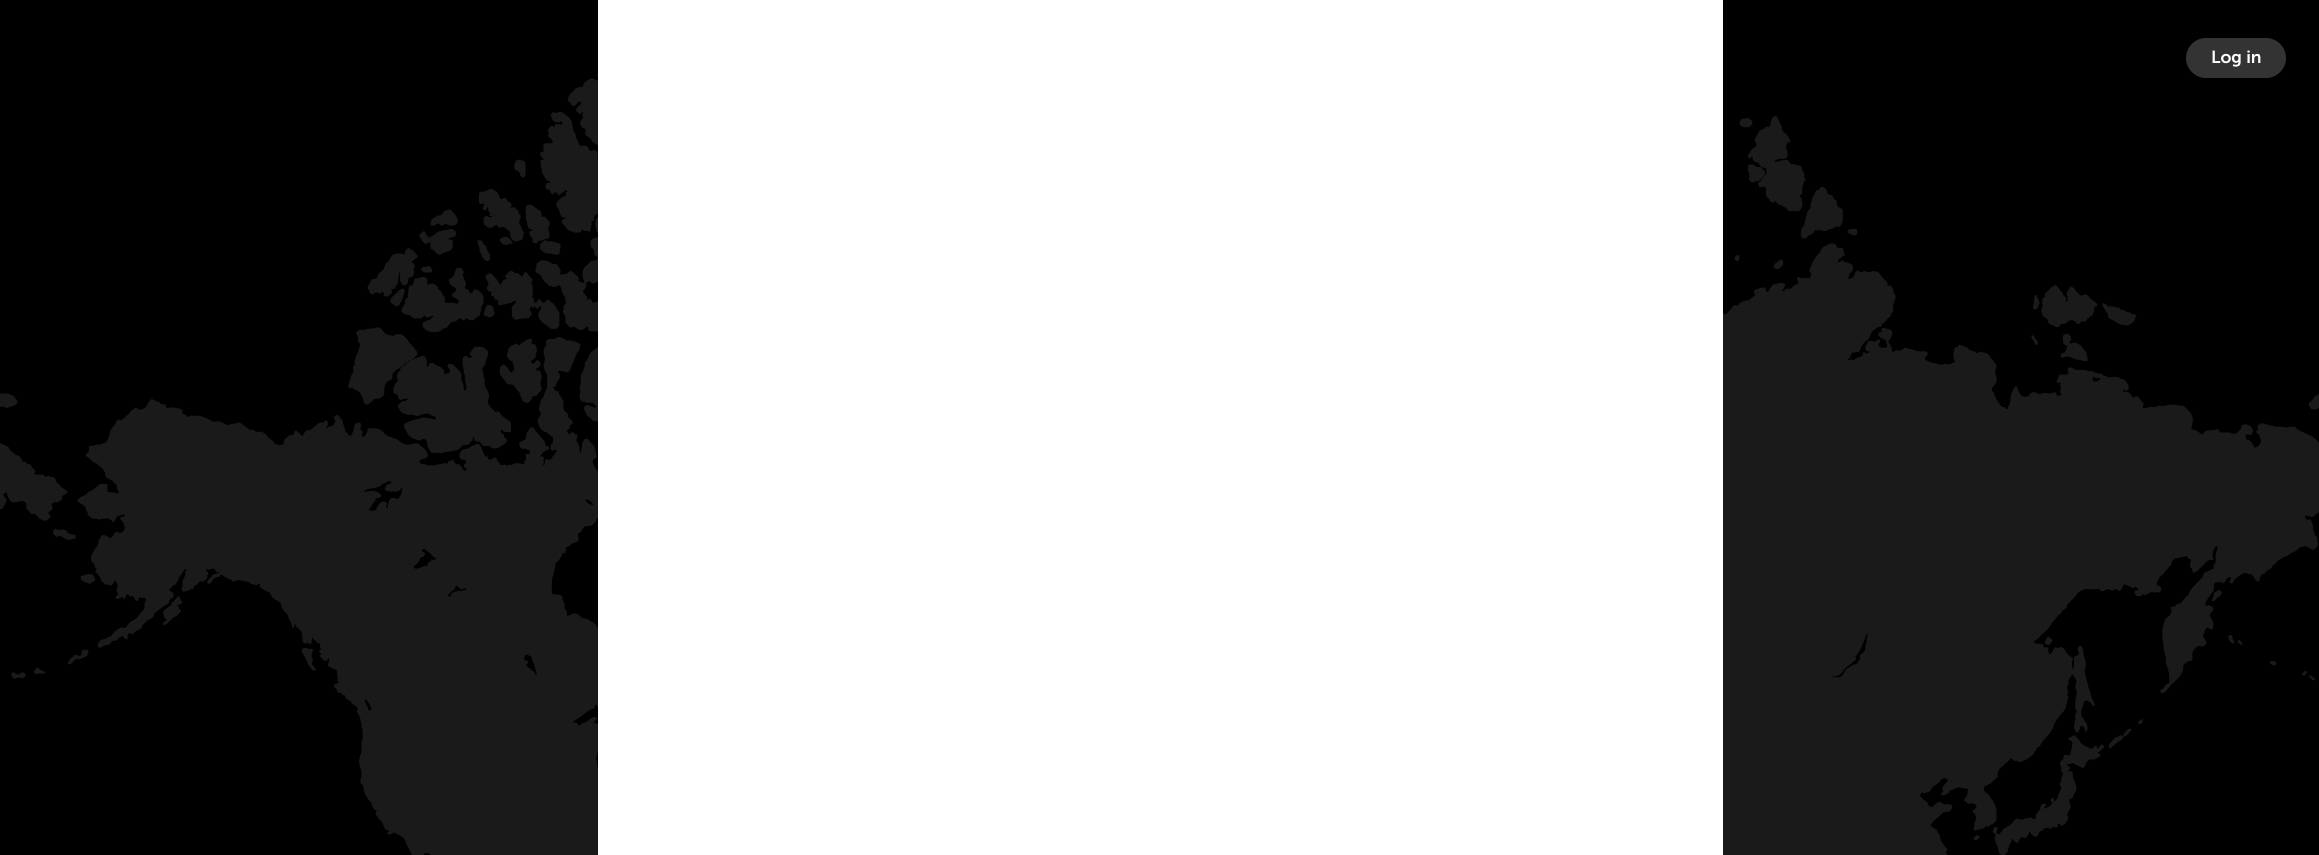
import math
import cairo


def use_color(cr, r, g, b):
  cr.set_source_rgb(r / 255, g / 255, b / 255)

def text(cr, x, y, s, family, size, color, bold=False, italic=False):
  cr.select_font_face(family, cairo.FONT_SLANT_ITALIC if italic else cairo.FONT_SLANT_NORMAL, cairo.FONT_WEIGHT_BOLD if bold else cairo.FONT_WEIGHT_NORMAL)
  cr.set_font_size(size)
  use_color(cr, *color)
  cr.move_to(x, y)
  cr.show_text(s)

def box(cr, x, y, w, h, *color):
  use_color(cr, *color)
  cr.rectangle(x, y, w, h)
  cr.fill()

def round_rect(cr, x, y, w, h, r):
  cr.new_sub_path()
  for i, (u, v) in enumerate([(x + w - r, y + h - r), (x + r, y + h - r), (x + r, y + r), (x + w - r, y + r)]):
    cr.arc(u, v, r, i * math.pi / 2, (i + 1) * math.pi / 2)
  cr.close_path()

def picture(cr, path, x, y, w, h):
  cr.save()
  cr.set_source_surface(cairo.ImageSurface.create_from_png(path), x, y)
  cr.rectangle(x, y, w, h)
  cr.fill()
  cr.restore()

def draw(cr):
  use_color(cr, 0, 0, 0)
  cr.paint()
  picture(cr, "img_01.png", 0, 73, 2319, 782)
  box(cr, 598, 0, 1125, 855, 255, 255, 255)
  use_color(cr, 51, 51, 51)
  round_rect(cr, 2186, 38, 100, 40, 20)
  cr.fill()
  text(cr, 2211, 63, "Log in", "Museo Sans SemiBold", 17.5, (255, 255, 255))


surface = cairo.ImageSurface(cairo.FORMAT_RGB24, 2319, 855)
cr = cairo.Context(surface)
options = cairo.FontOptions()
options.set_hint_metrics(cairo.HINT_METRICS_OFF)
options.set_hint_style(cairo.HINT_STYLE_NONE)
cr.set_font_options(options)
cr.set_miter_limit(4)
draw(cr)
surface.write_to_png("out.png")
